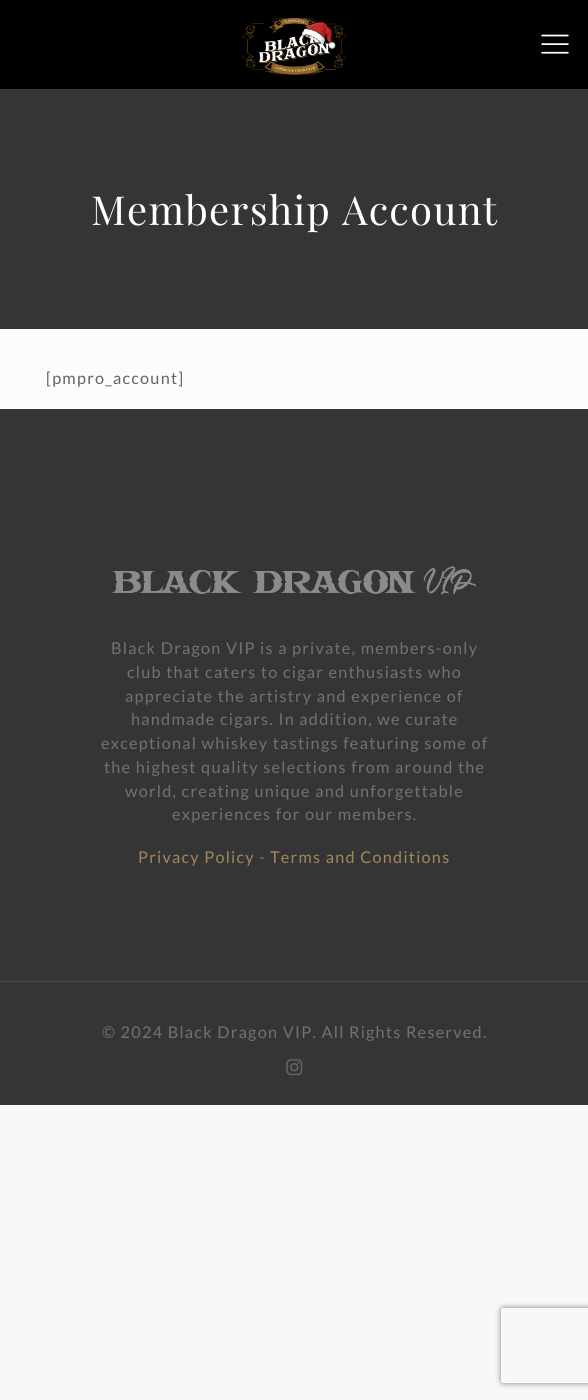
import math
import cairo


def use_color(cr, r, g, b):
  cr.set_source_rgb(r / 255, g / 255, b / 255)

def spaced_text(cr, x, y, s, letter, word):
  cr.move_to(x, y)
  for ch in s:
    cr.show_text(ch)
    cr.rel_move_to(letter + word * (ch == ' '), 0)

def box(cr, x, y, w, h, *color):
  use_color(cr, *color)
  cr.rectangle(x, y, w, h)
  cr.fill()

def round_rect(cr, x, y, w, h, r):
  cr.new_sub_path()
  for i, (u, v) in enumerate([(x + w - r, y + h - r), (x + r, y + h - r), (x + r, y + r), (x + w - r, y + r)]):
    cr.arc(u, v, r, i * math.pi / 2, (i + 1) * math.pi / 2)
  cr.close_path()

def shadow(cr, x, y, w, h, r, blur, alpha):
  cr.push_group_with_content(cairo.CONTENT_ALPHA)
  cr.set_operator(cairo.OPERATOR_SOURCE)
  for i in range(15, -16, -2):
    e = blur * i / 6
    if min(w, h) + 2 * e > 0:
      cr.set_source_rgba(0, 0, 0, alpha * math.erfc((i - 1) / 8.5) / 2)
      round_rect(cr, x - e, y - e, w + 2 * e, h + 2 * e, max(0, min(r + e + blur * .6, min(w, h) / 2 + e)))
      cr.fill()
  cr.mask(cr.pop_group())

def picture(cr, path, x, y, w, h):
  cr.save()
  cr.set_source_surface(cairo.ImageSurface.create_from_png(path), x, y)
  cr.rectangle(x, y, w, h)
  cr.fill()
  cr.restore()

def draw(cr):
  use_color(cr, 248, 248, 248)
  cr.paint()
  box(cr, 0, 0, 588, 89, 0, 0, 0)
  picture(cr, "img_01.png", 242, 17, 105, 58)
  picture(cr, "img_02.png", 541, 34, 28, 20)
  box(cr, 0, 329, 588, 80, 252, 252, 252)
  box(cr, 0, 89, 588, 240, 53, 54, 52)
  box(cr, 0, 409, 588, 696, 53, 53, 53)
  picture(cr, "img_03.png", 112, 566, 364, 29)
  box(cr, 0, 981, 588, 1, 73, 73, 73)
  picture(cr, "img_04.png", 286, 1059, 17, 17)
  cr.save()
  cr.set_fill_rule(cairo.FILL_RULE_EVEN_ODD)
  cr.new_path()
  cr.move_to(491, 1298)
  cr.line_to(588, 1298)
  cr.line_to(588, 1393)
  cr.line_to(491, 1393)
  cr.close_path()
  cr.move_to(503.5, 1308)
  cr.line_to(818.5, 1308)
  cr.curve_to(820, 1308, 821, 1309, 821, 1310.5)
  cr.line_to(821, 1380.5)
  cr.curve_to(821, 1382, 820, 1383, 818.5, 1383)
  cr.line_to(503.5, 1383)
  cr.curve_to(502, 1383, 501, 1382, 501, 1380.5)
  cr.line_to(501, 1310.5)
  cr.curve_to(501, 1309, 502, 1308, 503.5, 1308)
  cr.close_path()
  cr.clip()
  use_color(cr, 128, 128, 128)
  shadow(cr, 501, 1308, 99, 75, 2.5, 3, 1)
  cr.restore()
  cr.select_font_face("Playfair Display")
  cr.set_font_size(40)
  use_color(cr, 255, 255, 255)
  spaced_text(cr, 91, 225, "Membership Account", 1.25, 0)
  cr.select_font_face("Lato")
  cr.set_font_size(16.25)
  use_color(cr, 98, 98, 98)
  spaced_text(cr, 46, 384, "[pmpro_account]", 1.25, 0)
  use_color(cr, 114, 114, 114)
  spaced_text(cr, 111, 654, "Black Dragon VIP is a private, members-only", 1.25, 0)
  spaced_text(cr, 127, 678, "club that caters to cigar enthusiasts who", 1.25, 0)
  spaced_text(cr, 125, 702, "appreciate the artistry and experience of", 1.25, 0)
  spaced_text(cr, 131, 725, "handmade cigars. In addition, we curate", 1.25, 0)
  spaced_text(cr, 101, 749, "exceptional whiskey tastings featuring some of", 1.25, 0)
  spaced_text(cr, 104, 773, "the highest quality selections from around the", 1.25, 0)
  spaced_text(cr, 125, 797, "world, creating unique and unforgettable", 1.25, 0)
  spaced_text(cr, 172, 820, "experiences for our members.", 1.25, 0)
  use_color(cr, 163, 135, 91)
  spaced_text(cr, 138, 863, "Privacy Policy", 1.25, 0)
  use_color(cr, 114, 114, 114)
  spaced_text(cr, 259, 863, "-", 1.25, 0)
  use_color(cr, 163, 135, 91)
  spaced_text(cr, 270, 863, "Terms and Conditions", 1.25, 0)
  use_color(cr, 114, 114, 114)
  spaced_text(cr, 102, 1038, "© 2024 Black Dragon VIP. All Rights Reserved.", 1.25, 0)


surface = cairo.ImageSurface(cairo.FORMAT_RGB24, 588, 1400)
cr = cairo.Context(surface)
options = cairo.FontOptions()
options.set_hint_metrics(cairo.HINT_METRICS_OFF)
options.set_hint_style(cairo.HINT_STYLE_NONE)
cr.set_font_options(options)
cr.set_miter_limit(4)
draw(cr)
surface.write_to_png("out.png")
